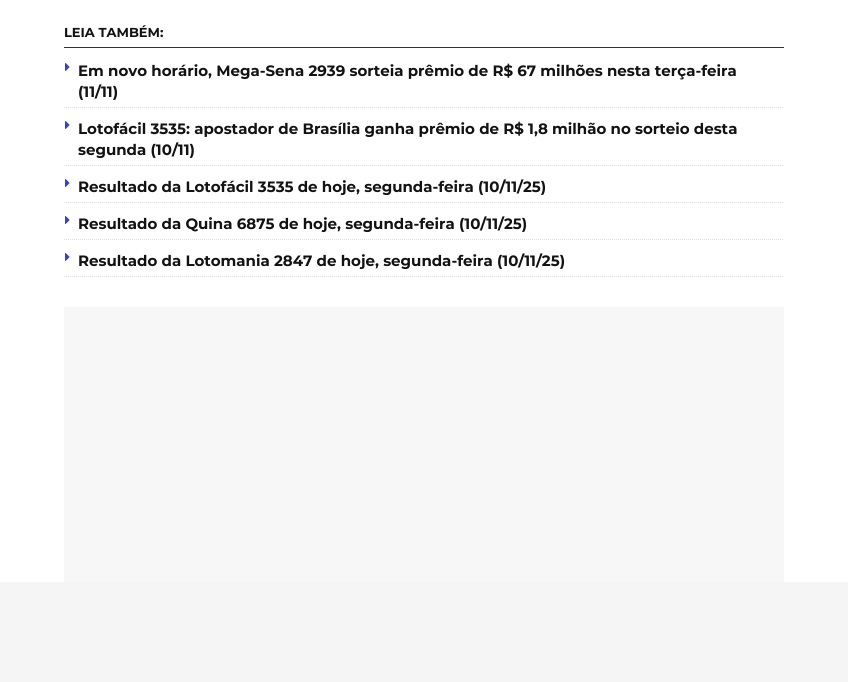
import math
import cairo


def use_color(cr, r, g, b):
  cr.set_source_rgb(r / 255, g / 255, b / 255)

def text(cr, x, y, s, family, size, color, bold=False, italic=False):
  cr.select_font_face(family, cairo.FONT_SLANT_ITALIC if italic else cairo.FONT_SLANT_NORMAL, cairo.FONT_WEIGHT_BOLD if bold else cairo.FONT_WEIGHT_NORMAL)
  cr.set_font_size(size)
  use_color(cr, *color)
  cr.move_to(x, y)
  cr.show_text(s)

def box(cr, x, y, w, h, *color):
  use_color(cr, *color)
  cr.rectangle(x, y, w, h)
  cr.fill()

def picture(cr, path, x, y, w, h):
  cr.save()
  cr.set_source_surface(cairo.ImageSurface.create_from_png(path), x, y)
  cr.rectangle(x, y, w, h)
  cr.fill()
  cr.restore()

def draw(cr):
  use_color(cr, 255, 255, 255)
  cr.paint()
  box(cr, 64, 47, 720, 1, 51, 51, 51)
  cr.new_path()
  cr.move_to(64, 107.5)
  cr.line_to(784, 107.5)
  use_color(cr, 224, 224, 224)
  cr.set_line_width(1)
  cr.set_dash([1, 1])
  cr.stroke()
  picture(cr, "img_01.png", 65, 63, 5, 8)
  cr.new_path()
  cr.move_to(64, 165.5)
  cr.line_to(784, 165.5)
  cr.stroke()
  picture(cr, "img_01.png", 65, 121, 5, 8)
  cr.new_path()
  cr.move_to(64, 202.5)
  cr.line_to(784, 202.5)
  cr.stroke()
  picture(cr, "img_01.png", 65, 179, 5, 8)
  cr.new_path()
  cr.move_to(64, 239.5)
  cr.line_to(784, 239.5)
  cr.stroke()
  picture(cr, "img_01.png", 65, 216, 5, 8)
  cr.new_path()
  cr.move_to(64, 276.5)
  cr.line_to(784, 276.5)
  cr.stroke()
  picture(cr, "img_01.png", 65, 253, 5, 8)
  box(cr, 64, 307, 720, 275, 247, 247, 247)
  box(cr, 0, 582, 848, 100, 245, 245, 245)
  text(cr, 64, 37, "LEIA TAMBÉM:", "Montserrat", 13, (18, 18, 18), bold=True)
  text(cr, 78, 76, "Em novo horário, Mega-Sena 2939 sorteia prêmio de R$ 67 milhões nesta terça-feira", "Montserrat", 15, (18, 18, 18), bold=True)
  text(cr, 78, 97, "(11/11)", "Montserrat", 15, (18, 18, 18), bold=True)
  text(cr, 78, 134, "Lotofácil 3535: apostador de Brasília ganha prêmio de R$ 1,8 milhão no sorteio desta", "Montserrat", 15, (18, 18, 18), bold=True)
  text(cr, 78, 155, "segunda (10/11)", "Montserrat", 15, (18, 18, 18), bold=True)
  text(cr, 78, 192, "Resultado da Lotofácil 3535 de hoje, segunda-feira (10/11/25)", "Montserrat", 15, (18, 18, 18), bold=True)
  text(cr, 78, 229, "Resultado da Quina 6875 de hoje, segunda-feira (10/11/25)", "Montserrat", 15, (18, 18, 18), bold=True)
  text(cr, 78, 266, "Resultado da Lotomania 2847 de hoje, segunda-feira (10/11/25)", "Montserrat", 15, (18, 18, 18), bold=True)


surface = cairo.ImageSurface(cairo.FORMAT_RGB24, 848, 682)
cr = cairo.Context(surface)
options = cairo.FontOptions()
options.set_hint_metrics(cairo.HINT_METRICS_OFF)
options.set_hint_style(cairo.HINT_STYLE_NONE)
cr.set_font_options(options)
cr.set_miter_limit(4)
draw(cr)
surface.write_to_png("out.png")
